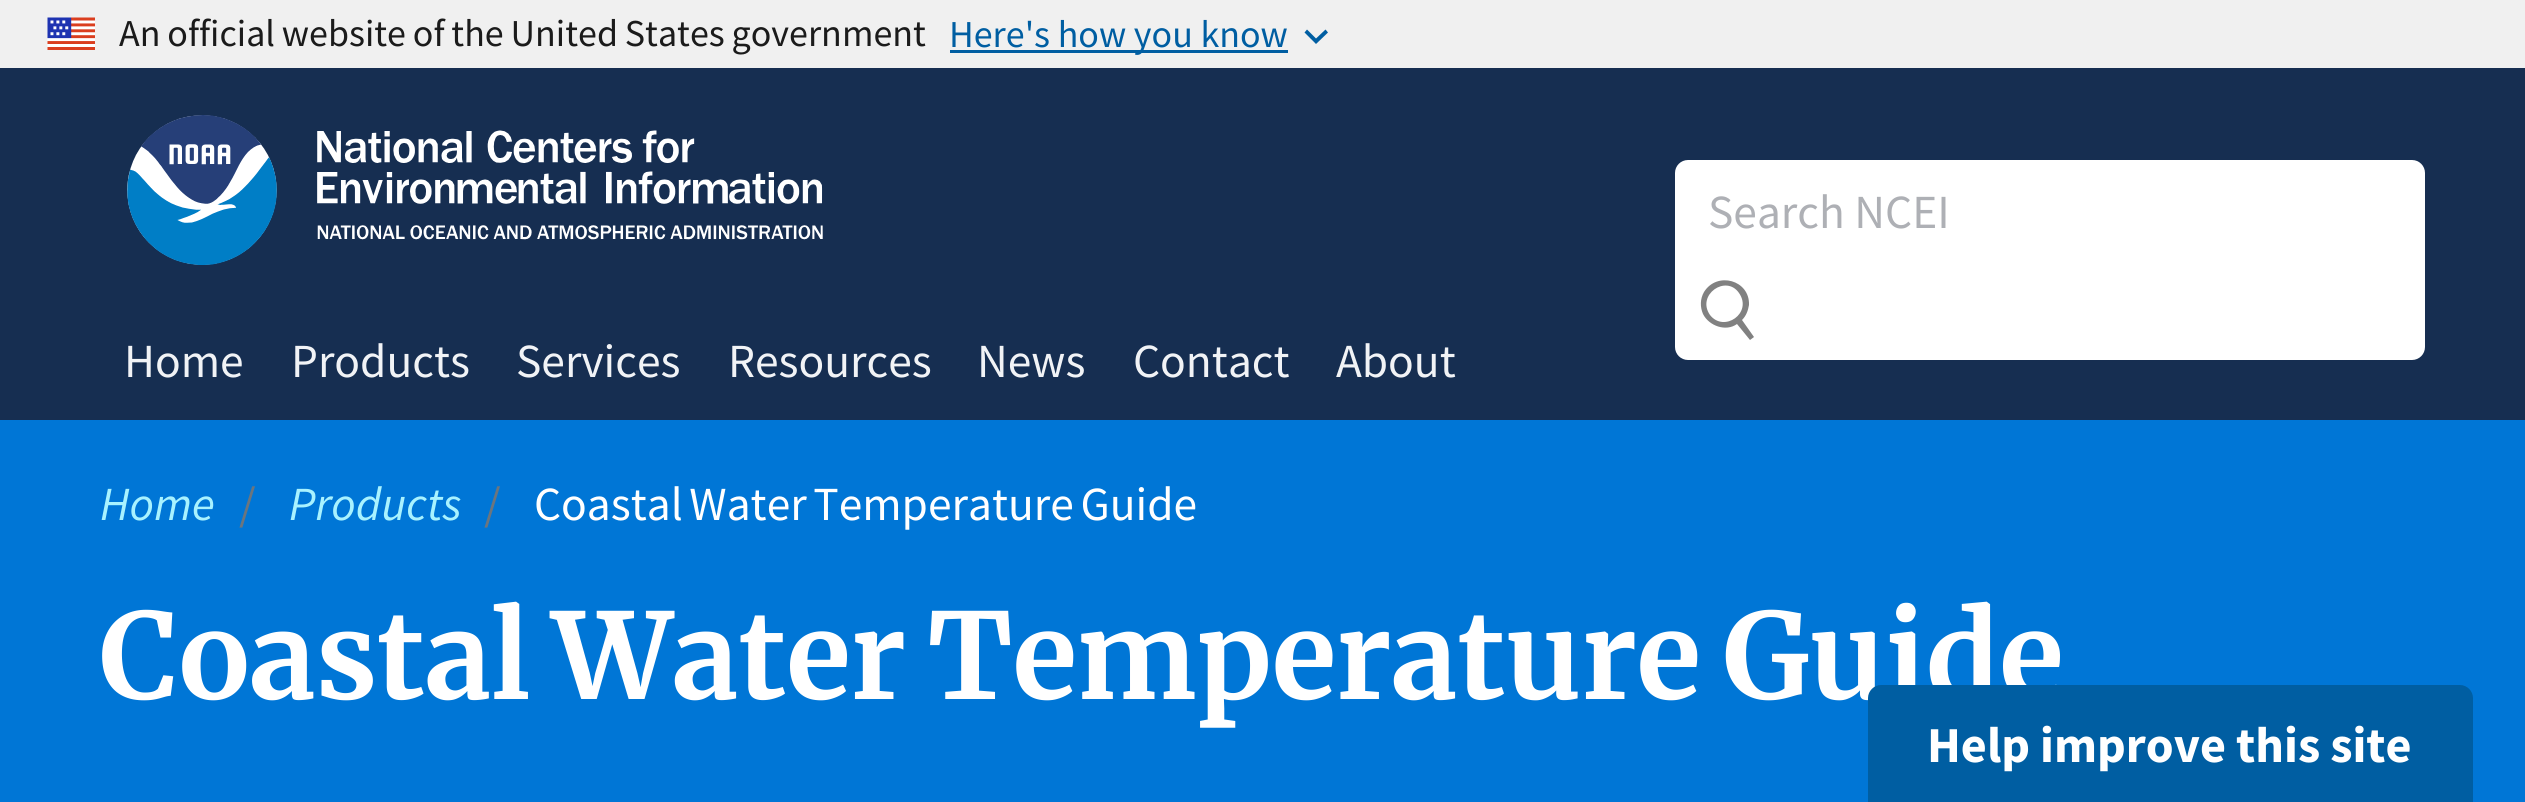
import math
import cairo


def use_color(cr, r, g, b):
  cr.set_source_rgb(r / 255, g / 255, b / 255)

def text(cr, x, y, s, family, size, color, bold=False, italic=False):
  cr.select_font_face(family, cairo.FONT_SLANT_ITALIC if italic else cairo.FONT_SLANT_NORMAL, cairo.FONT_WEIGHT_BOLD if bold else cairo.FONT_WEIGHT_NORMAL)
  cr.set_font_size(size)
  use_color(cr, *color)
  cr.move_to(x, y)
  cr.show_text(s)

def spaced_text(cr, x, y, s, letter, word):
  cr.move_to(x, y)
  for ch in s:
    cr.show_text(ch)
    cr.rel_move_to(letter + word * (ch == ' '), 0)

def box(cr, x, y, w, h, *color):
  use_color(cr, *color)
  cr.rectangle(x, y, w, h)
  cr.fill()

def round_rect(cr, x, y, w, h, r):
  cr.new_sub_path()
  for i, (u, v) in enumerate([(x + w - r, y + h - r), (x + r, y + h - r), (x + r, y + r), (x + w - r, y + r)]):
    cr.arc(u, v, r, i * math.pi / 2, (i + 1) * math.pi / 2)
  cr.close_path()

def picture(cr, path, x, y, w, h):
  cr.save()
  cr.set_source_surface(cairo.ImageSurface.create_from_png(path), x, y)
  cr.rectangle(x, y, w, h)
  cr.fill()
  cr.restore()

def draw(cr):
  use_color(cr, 240, 240, 240)
  cr.paint()
  picture(cr, "img_01.png", 47, 17, 48, 33)
  box(cr, 950, 50, 338, 3, 0, 94, 162)
  cr.new_path()
  cr.move_to(1325.5, 29.5)
  cr.line_to(1316, 38.5)
  cr.line_to(1307, 29.5)
  cr.line_to(1304.5, 32.5)
  cr.line_to(1316, 44)
  cr.line_to(1328, 32.5)
  cr.close_path()
  cr.fill()
  box(cr, 0, 68, 2525, 352, 22, 46, 81)
  picture(cr, "img_02.png", 127, 115, 696, 150)
  use_color(cr, 255, 255, 255)
  round_rect(cr, 1675, 160, 750, 200, 13)
  cr.fill()
  use_color(cr, 129, 129, 129)
  cr.new_path()
  cr.move_to(1754, 337)
  cr.line_to(1742, 320)
  cr.curve_to(1746, 316, 1748, 311, 1749, 305)
  cr.curve_to(1750, 280, 1717, 271, 1704, 292)
  cr.curve_to(1700, 299, 1700, 307, 1703, 314)
  cr.curve_to(1709, 326, 1726, 332, 1737, 324)
  cr.line_to(1750, 340)
  cr.close_path()
  cr.move_to(1710, 315)
  cr.curve_to(1696, 295, 1726, 274, 1739, 293)
  cr.curve_to(1753, 313, 1724, 333, 1710, 315)
  cr.close_path()
  cr.fill()
  box(cr, 0, 420, 2525, 382, 0, 118, 214)
  cr.select_font_face("Source Sans Pro")
  cr.set_font_size(38)
  use_color(cr, 27, 27, 27)
  spaced_text(cr, 119, 46, "An official website of the United States government", 0, -0.75)
  text(cr, 949, 47, "Here's how you know", "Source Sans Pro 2", 38, (0, 94, 162))
  text(cr, 1708, 228, "Search NCEI", "Source Sans Pro 2", 47.5, (174, 176, 181))
  text(cr, 124, 377, "Home", "Source Sans Pro 2", 47.5, (241, 243, 246))
  text(cr, 291, 377, "Products", "Source Sans Pro 2", 47.5, (241, 243, 246))
  text(cr, 516, 377, "Services", "Source Sans Pro 2", 47.5, (241, 243, 246))
  text(cr, 728, 377, "Resources", "Source Sans Pro 2", 47.5, (241, 243, 246))
  text(cr, 977, 377, "News", "Source Sans Pro 2", 47.5, (241, 243, 246))
  text(cr, 1133, 377, "Contact", "Source Sans Pro 2", 47.5, (241, 243, 246))
  text(cr, 1336, 377, "About", "Source Sans Pro 2", 47.5, (241, 243, 246))
  text(cr, 100, 520, "Home", "Source Sans Pro", 47.5, (168, 242, 255), italic=True)
  text(cr, 239, 520, "/", "Source Sans Pro 2", 47.5, (108, 117, 125))
  text(cr, 289, 520, "Products", "Source Sans Pro", 47.5, (168, 242, 255), italic=True)
  text(cr, 484, 520, "/", "Source Sans Pro 2", 47.5, (108, 117, 125))
  use_color(cr, 255, 255, 255)
  spaced_text(cr, 534, 520, "Coastal Water Temperature Guide", 0, -3)
  cr.select_font_face("Merriweather", cairo.FONT_SLANT_NORMAL, cairo.FONT_WEIGHT_BOLD)
  cr.set_font_size(118.75)
  spaced_text(cr, 100, 699, "Coastal Water Temperature Guide", 0, -6.5)
  use_color(cr, 0, 94, 162)
  cr.new_path()
  cr.move_to(1881, 685)
  cr.line_to(2460, 685)
  cr.curve_to(2467, 685, 2473, 691, 2473, 698)
  cr.line_to(2473, 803)
  cr.line_to(1868, 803)
  cr.line_to(1868, 698)
  cr.curve_to(1868, 691, 1874, 685, 1881, 685)
  cr.close_path()
  cr.fill()
  text(cr, 1927, 762, "Help improve this site", "Source Sans Pro", 50.25, (255, 255, 255), bold=True)


surface = cairo.ImageSurface(cairo.FORMAT_RGB24, 2525, 802)
cr = cairo.Context(surface)
options = cairo.FontOptions()
options.set_hint_metrics(cairo.HINT_METRICS_OFF)
options.set_hint_style(cairo.HINT_STYLE_NONE)
cr.set_font_options(options)
cr.set_miter_limit(4)
draw(cr)
surface.write_to_png("out.png")
